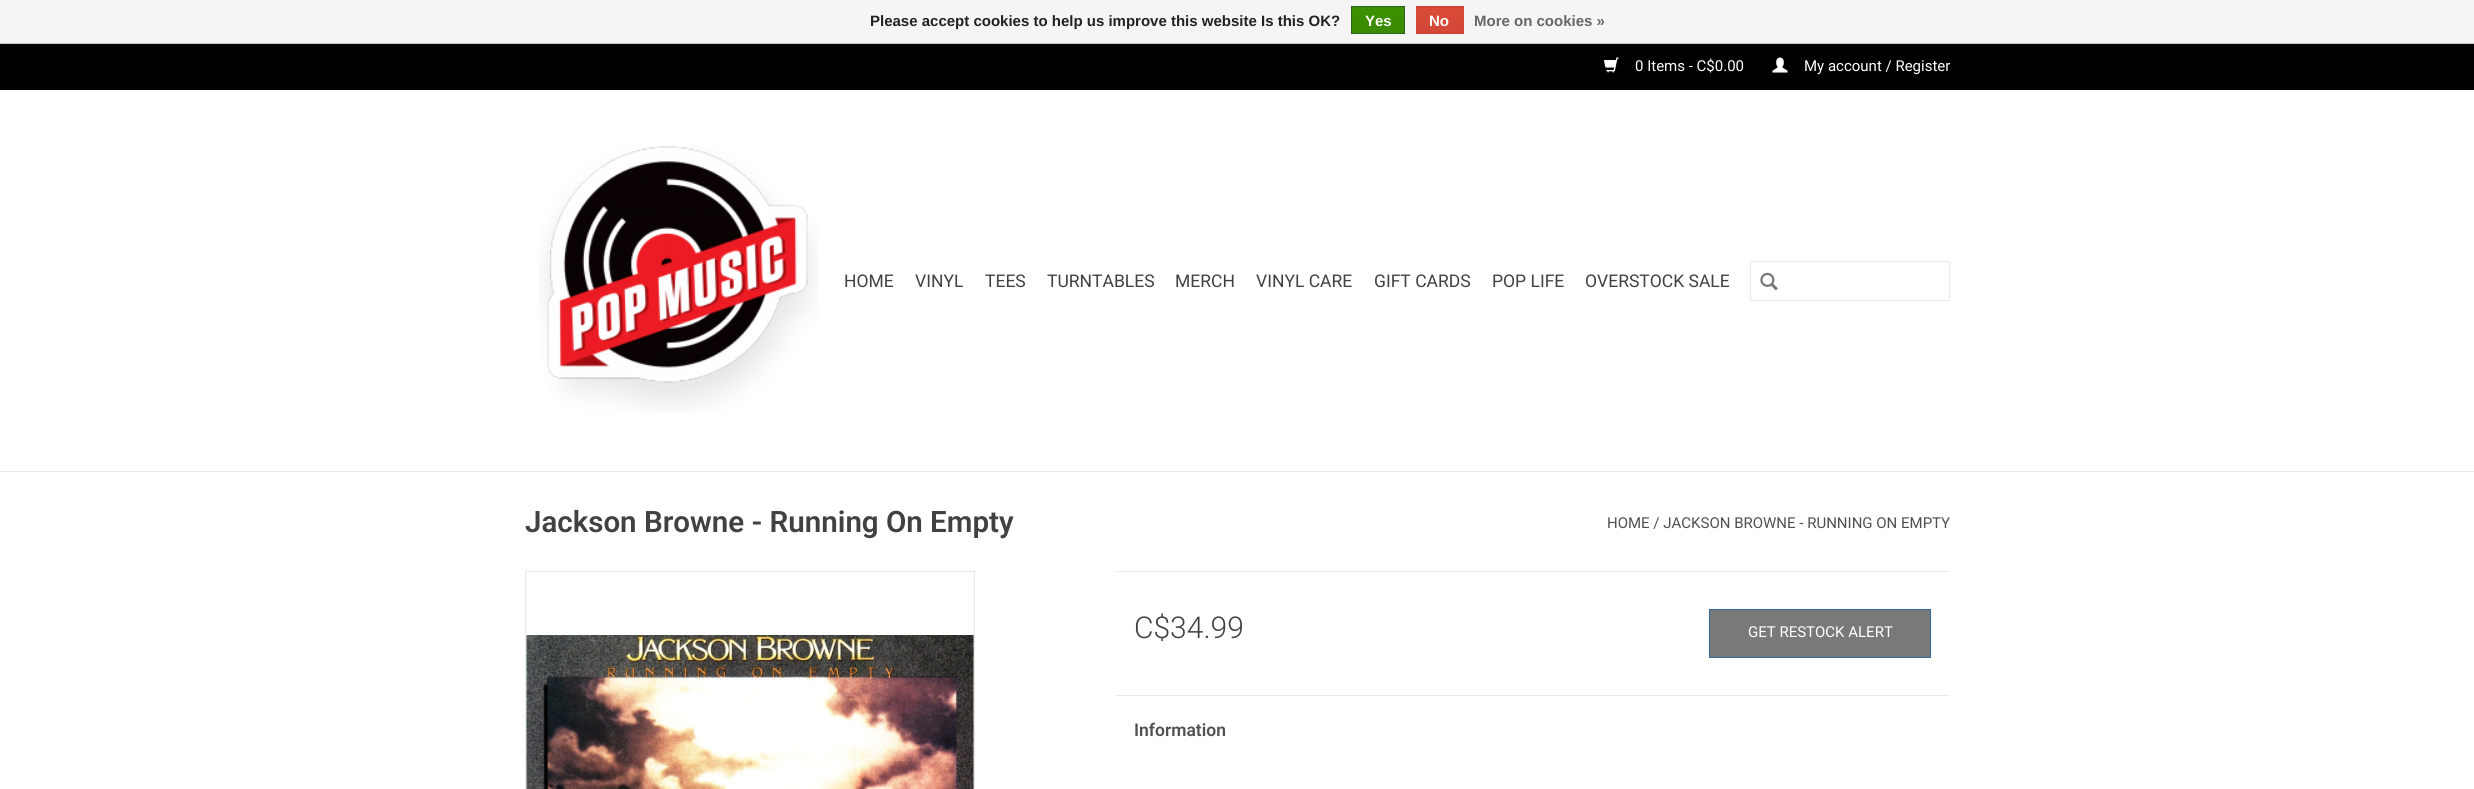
import math
import cairo


def use_color(cr, r, g, b):
  cr.set_source_rgb(r / 255, g / 255, b / 255)

def text(cr, x, y, s, family, size, color, bold=False, italic=False):
  cr.select_font_face(family, cairo.FONT_SLANT_ITALIC if italic else cairo.FONT_SLANT_NORMAL, cairo.FONT_WEIGHT_BOLD if bold else cairo.FONT_WEIGHT_NORMAL)
  cr.set_font_size(size)
  use_color(cr, *color)
  cr.move_to(x, y)
  cr.show_text(s)

def box(cr, x, y, w, h, *color):
  use_color(cr, *color)
  cr.rectangle(x, y, w, h)
  cr.fill()

def picture(cr, path, x, y, w, h):
  cr.save()
  cr.set_source_surface(cairo.ImageSurface.create_from_png(path), x, y)
  cr.rectangle(x, y, w, h)
  cr.fill()
  cr.restore()

def draw(cr):
  use_color(cr, 255, 255, 255)
  cr.paint()
  box(cr, 0, 0, 2474, 43, 245, 245, 245)
  box(cr, 0, 43, 2474, 1, 204, 204, 204)
  gradient = cairo.LinearGradient(1378, -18, 1378, 7.5)
  gradient.add_color_stop_rgba(0, 0.235, 0.576, 0, 1)
  gradient.add_color_stop_rgba(1, 0.224, 0.541, 0, 1)
  cr.set_source(gradient)
  cr.rectangle(1351, 7, 54, 1)
  cr.fill()
  gradient = cairo.LinearGradient(1378, 7.5, 1378, 33)
  gradient.add_color_stop_rgba(0, 0.235, 0.576, 0, 1)
  gradient.add_color_stop_rgba(1, 0.224, 0.541, 0, 1)
  cr.set_source(gradient)
  cr.rectangle(1352, 8, 52, 25)
  cr.fill()
  cr.rectangle(1351.5, 6.5, 53, 27)
  use_color(cr, 41, 105, 29)
  cr.set_line_width(1)
  cr.stroke()
  gradient = cairo.LinearGradient(1440, -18, 1440, 7.5)
  gradient.add_color_stop_rgba(0, 0.863, 0.29, 0.22, 1)
  gradient.add_color_stop_rgba(1, 0.82, 0.282, 0.212, 1)
  cr.set_source(gradient)
  cr.rectangle(1416, 7, 48, 1)
  cr.fill()
  gradient = cairo.LinearGradient(1440, 7.5, 1440, 33)
  gradient.add_color_stop_rgba(0, 0.863, 0.29, 0.22, 1)
  gradient.add_color_stop_rgba(1, 0.82, 0.282, 0.212, 1)
  cr.set_source(gradient)
  cr.rectangle(1417, 8, 46, 25)
  cr.fill()
  cr.rectangle(1416.5, 6.5, 47, 27)
  use_color(cr, 209, 72, 54)
  cr.stroke()
  box(cr, 0, 471, 2474, 1, 234, 234, 234)
  box(cr, 0, 44, 2474, 46, 0, 0, 0)
  picture(cr, "img_01.png", 1604, 57, 15, 16)
  picture(cr, "img_02.png", 1772, 57, 16, 16)
  picture(cr, "img_03.png", 538, 146, 281, 267)
  cr.rectangle(1750.5, 261.5, 199, 39)
  use_color(cr, 234, 234, 234)
  cr.stroke()
  picture(cr, "img_04.png", 1760, 272, 18, 19)
  cr.rectangle(525.5, 571.5, 449, 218)
  cr.stroke()
  box(cr, 526, 573, 448, 216, 247, 247, 247)
  picture(cr, "img_05.png", 526, 573, 448, 216)
  box(cr, 1116, 571, 834, 1, 234, 234, 234)
  use_color(cr, 123, 120, 120)
  cr.rectangle(1709.5, 609.5, 221, 48)
  cr.fill_preserve()
  use_color(cr, 46, 109, 164)
  cr.stroke()
  box(cr, 1116, 695, 834, 1, 234, 234, 234)
  text(cr, 870, 26, "Please accept cookies to help us improve this website Is this OK?", "Liberation Sans", 15, (34, 34, 34), bold=True)
  text(cr, 1365, 26, "Yes", "Liberation Sans", 15, (255, 255, 255), bold=True)
  text(cr, 1429, 26, "No", "Liberation Sans", 15, (255, 255, 255), bold=True)
  text(cr, 1474, 26, "More on cookies »", "Liberation Sans", 15, (102, 102, 102), bold=True)
  text(cr, 1635, 71, "0 Items - C$0.00", "Roboto", 15, (255, 255, 255))
  text(cr, 1804, 71, "My account / Register", "Roboto", 15, (255, 255, 255))
  text(cr, 844, 287, "HOME", "Roboto", 17.5, (65, 65, 65))
  text(cr, 915, 287, "VINYL", "Roboto", 17.5, (65, 65, 65))
  text(cr, 985, 287, "TEES", "Roboto", 17.5, (65, 65, 65))
  text(cr, 1047, 287, "TURNTABLES", "Roboto", 17.5, (65, 65, 65))
  text(cr, 1175, 287, "MERCH", "Roboto", 17.5, (65, 65, 65))
  text(cr, 1256, 287, "VINYL CARE", "Roboto", 17.5, (65, 65, 65))
  text(cr, 1374, 287, "GIFT CARDS", "Roboto", 17.5, (65, 65, 65))
  text(cr, 1492, 287, "POP LIFE", "Roboto", 17.5, (65, 65, 65))
  text(cr, 1585, 287, "OVERSTOCK SALE", "Roboto", 17.5, (65, 65, 65))
  text(cr, 525, 532, "Jackson Browne - Running On Empty", "Roboto SemiBold", 29.5, (65, 65, 65))
  text(cr, 1607, 528, "HOME / JACKSON BROWNE - RUNNING ON EMPTY", "Roboto", 15, (80, 80, 80))
  text(cr, 1134, 638, "C$34.99", "Roboto Light", 30, (65, 65, 65))
  text(cr, 1748, 637, "GET RESTOCK ALERT", "Roboto", 15, (255, 255, 255))
  text(cr, 1134, 736, "Information", "Roboto SemiBold", 17.5, (80, 80, 80))


surface = cairo.ImageSurface(cairo.FORMAT_RGB24, 2474, 789)
cr = cairo.Context(surface)
options = cairo.FontOptions()
options.set_hint_metrics(cairo.HINT_METRICS_OFF)
options.set_hint_style(cairo.HINT_STYLE_NONE)
cr.set_font_options(options)
cr.set_miter_limit(4)
draw(cr)
surface.write_to_png("out.png")
